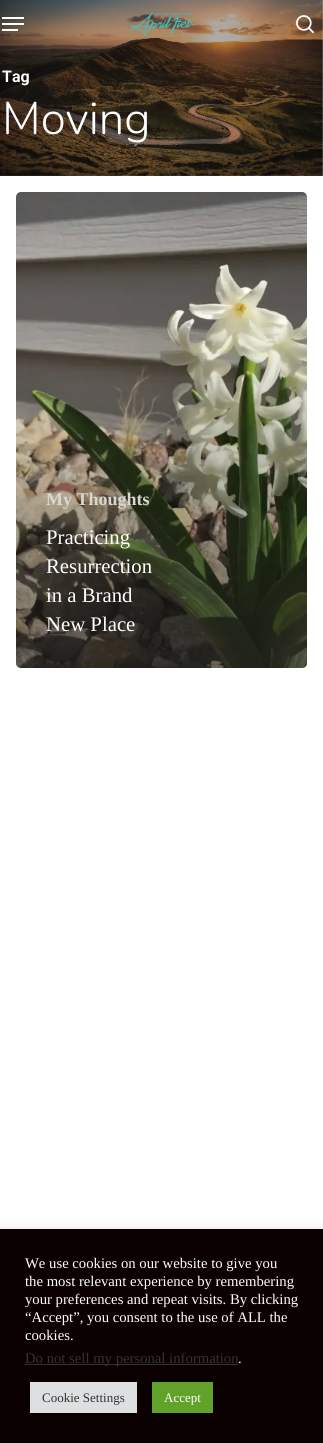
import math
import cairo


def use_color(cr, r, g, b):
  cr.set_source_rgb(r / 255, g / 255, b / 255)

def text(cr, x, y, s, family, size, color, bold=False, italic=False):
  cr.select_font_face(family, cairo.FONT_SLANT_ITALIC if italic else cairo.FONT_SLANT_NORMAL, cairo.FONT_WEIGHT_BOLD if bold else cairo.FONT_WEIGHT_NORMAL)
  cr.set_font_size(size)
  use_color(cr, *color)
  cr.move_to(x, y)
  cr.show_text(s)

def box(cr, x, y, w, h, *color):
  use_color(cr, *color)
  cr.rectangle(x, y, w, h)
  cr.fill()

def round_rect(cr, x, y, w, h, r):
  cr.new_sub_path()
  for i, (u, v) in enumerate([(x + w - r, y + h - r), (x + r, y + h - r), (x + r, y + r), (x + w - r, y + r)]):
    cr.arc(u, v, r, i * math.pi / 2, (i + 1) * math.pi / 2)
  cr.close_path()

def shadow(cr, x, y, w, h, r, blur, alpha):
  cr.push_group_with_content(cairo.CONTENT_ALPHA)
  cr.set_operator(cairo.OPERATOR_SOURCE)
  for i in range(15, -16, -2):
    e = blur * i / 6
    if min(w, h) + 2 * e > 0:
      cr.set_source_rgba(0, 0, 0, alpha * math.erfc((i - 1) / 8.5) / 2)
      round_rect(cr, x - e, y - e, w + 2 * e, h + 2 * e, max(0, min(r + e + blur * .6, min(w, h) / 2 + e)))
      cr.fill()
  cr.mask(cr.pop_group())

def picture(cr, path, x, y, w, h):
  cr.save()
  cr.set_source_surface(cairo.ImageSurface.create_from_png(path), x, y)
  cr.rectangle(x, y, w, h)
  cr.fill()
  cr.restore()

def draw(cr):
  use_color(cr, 255, 255, 255)
  cr.paint()
  picture(cr, "img_03.png", 0, 0, 323, 176)
  picture(cr, "img_01.png", 128, 12, 66, 24)
  box(cr, 2, 17, 22, 2, 255, 255, 255)
  box(cr, 2, 29, 16, 2, 255, 255, 255)
  box(cr, 2, 23, 22, 2, 255, 255, 255)
  picture(cr, "img_02.png", 296, 15, 18, 19)
  picture(cr, "img_04.png", 16, 192, 291, 476)
  gradient = cairo.LinearGradient(162, 312, 162, 671)
  gradient.add_color_stop_rgba(0, 0.137, 0.137, 0.137, 0)
  gradient.add_color_stop_rgba(1, 0.137, 0.137, 0.137, 0.65)
  cr.set_source(gradient)
  cr.new_path()
  cr.move_to(16, 312)
  cr.line_to(307, 312)
  cr.line_to(307, 663)
  cr.curve_to(307, 666, 305, 668, 302, 668)
  cr.line_to(21, 668)
  cr.curve_to(18, 668, 16, 666, 16, 663)
  cr.close_path()
  cr.fill()
  use_color(cr, 172, 171, 171)
  shadow(cr, 0, 1228, 323, 214, 0, 5, 0.3)
  box(cr, 0, 1229, 323, 214, 10, 0, 0)
  box(cr, 25, 1364, 213, 1, 51, 51, 51)
  box(cr, 30, 1382, 107, 31, 222, 223, 224)
  box(cr, 152, 1382, 61, 31, 97, 162, 41)
  text(cr, 2, 82, "Tag", "Roboto", 16, (255, 255, 255), bold=True)
  text(cr, 2, 134, "Moving", "Nunito Light", 45.5, (255, 255, 255))
  text(cr, 46, 505, "My Thoughts", "Liberation Serif", 18, (216, 214, 208), bold=True)
  text(cr, 46, 544, "Practicing", "Liberation Serif", 20.75, (255, 255, 255))
  text(cr, 46, 573, "Resurrection", "Liberation Serif", 20.75, (255, 255, 255))
  text(cr, 46, 602, "in a Brand", "Liberation Serif", 20.75, (255, 255, 255))
  text(cr, 46, 631, "New Place", "Liberation Serif", 20.75, (255, 255, 255))
  text(cr, 25, 1268, "We use cookies on our website to give you", "Liberation Serif", 14.7, (255, 255, 255))
  text(cr, 25, 1286, "the most relevant experience by remembering", "Liberation Serif", 14.7, (255, 255, 255))
  text(cr, 25, 1304, "your preferences and repeat visits. By clicking", "Liberation Serif", 14.7, (255, 255, 255))
  text(cr, 25, 1322, "“Accept”, you consent to the use of ALL the", "Liberation Serif", 14.7, (255, 255, 255))
  text(cr, 25, 1340, "cookies.", "Liberation Serif", 14.7, (255, 255, 255))
  text(cr, 25, 1363, "Do not sell my personal information", "Liberation Serif", 14.7, (51, 51, 51))
  text(cr, 238, 1363, ".", "Liberation Serif", 14.7, (255, 255, 255))
  text(cr, 42, 1402, "Cookie Settings", "Liberation Serif", 13, (51, 51, 51))
  text(cr, 164, 1402, "Accept", "Liberation Serif", 13, (255, 255, 255))


surface = cairo.ImageSurface(cairo.FORMAT_RGB24, 323, 1443)
cr = cairo.Context(surface)
options = cairo.FontOptions()
options.set_hint_metrics(cairo.HINT_METRICS_OFF)
options.set_hint_style(cairo.HINT_STYLE_NONE)
cr.set_font_options(options)
cr.set_miter_limit(4)
draw(cr)
surface.write_to_png("out.png")
